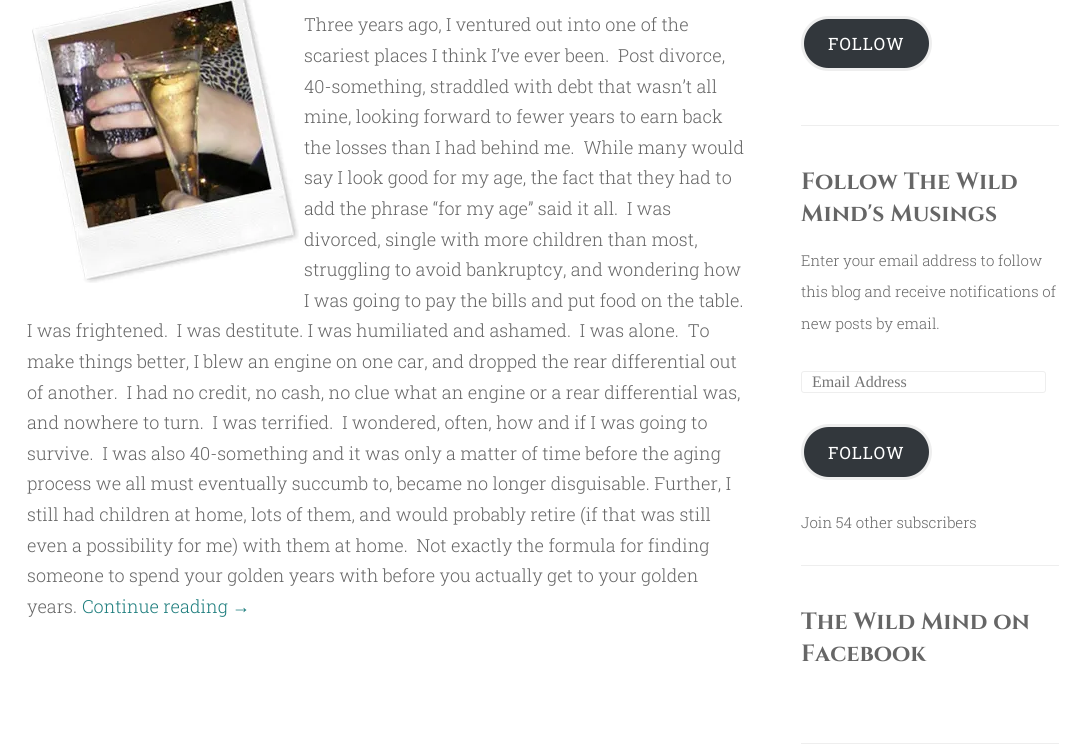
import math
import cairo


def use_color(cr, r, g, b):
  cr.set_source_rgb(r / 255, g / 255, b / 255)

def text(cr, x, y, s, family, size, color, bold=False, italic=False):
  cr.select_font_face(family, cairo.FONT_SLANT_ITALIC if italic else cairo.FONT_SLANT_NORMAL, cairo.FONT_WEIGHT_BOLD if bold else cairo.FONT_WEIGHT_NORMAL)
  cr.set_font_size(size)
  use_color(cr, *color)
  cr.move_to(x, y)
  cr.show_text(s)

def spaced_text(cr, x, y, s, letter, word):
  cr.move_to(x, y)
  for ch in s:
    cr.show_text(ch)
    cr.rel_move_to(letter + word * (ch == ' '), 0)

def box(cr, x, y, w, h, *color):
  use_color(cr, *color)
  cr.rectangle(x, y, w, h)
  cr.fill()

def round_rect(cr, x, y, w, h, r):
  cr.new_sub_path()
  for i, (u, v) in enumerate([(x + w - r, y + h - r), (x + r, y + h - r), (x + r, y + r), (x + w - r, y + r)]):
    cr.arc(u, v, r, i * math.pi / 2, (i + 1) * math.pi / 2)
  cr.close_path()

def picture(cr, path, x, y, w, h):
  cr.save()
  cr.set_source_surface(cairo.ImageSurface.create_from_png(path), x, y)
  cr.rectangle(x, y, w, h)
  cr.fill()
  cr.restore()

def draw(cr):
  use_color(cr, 255, 255, 255)
  cr.paint()
  picture(cr, "img_01.png", 32, 0, 267, 283)
  box(cr, 801, 125, 258, 1, 238, 238, 238)
  use_color(cr, 50, 55, 60)
  round_rect(cr, 802.5, 17.5, 128, 52, 26)
  cr.fill_preserve()
  use_color(cr, 238, 238, 238)
  cr.set_line_width(3)
  cr.stroke()
  box(cr, 801, 565, 258, 1, 238, 238, 238)
  round_rect(cr, 801.5, 371.5, 244, 21, 2.5)
  cr.set_line_width(1)
  cr.stroke()
  use_color(cr, 50, 55, 60)
  round_rect(cr, 802.5, 425.5, 128, 53, 26.5)
  cr.fill_preserve()
  use_color(cr, 238, 238, 238)
  cr.set_line_width(3)
  cr.stroke()
  box(cr, 801, 743, 258, 1, 238, 238, 238)
  text(cr, 304, 31, "Three years ago, I ventured out into one of the", "Roboto Slab Light", 18, (102, 102, 102))
  text(cr, 304, 62, "scariest places I think I’ve ever been.  Post divorce,", "Roboto Slab Light", 18, (102, 102, 102))
  text(cr, 304, 93, "40-something, straddled with debt that wasn’t all", "Roboto Slab Light", 18, (102, 102, 102))
  text(cr, 304, 123, "mine, looking forward to fewer years to earn back", "Roboto Slab Light", 18, (102, 102, 102))
  text(cr, 304, 154, "the losses than I had behind me.  While many would", "Roboto Slab Light", 18, (102, 102, 102))
  text(cr, 304, 184, "say I look good for my age, the fact that they had to", "Roboto Slab Light", 18, (102, 102, 102))
  text(cr, 304, 215, "add the phrase “for my age” said it all.  I was", "Roboto Slab Light", 18, (102, 102, 102))
  text(cr, 304, 246, "divorced, single with more children than most,", "Roboto Slab Light", 18, (102, 102, 102))
  text(cr, 304, 276, "struggling to avoid bankruptcy, and wondering how", "Roboto Slab Light", 18, (102, 102, 102))
  text(cr, 304, 307, "I was going to pay the bills and put food on the table.", "Roboto Slab Light", 18, (102, 102, 102))
  text(cr, 27, 337, "I was frightened.  I was destitute. I was humiliated and ashamed.  I was alone.  To", "Roboto Slab Light", 18, (102, 102, 102))
  text(cr, 27, 368, "make things better, I blew an engine on one car, and dropped the rear differential out", "Roboto Slab Light", 18, (102, 102, 102))
  text(cr, 27, 399, "of another.  I had no credit, no cash, no clue what an engine or a rear differential was,", "Roboto Slab Light", 18, (102, 102, 102))
  text(cr, 27, 429, "and nowhere to turn.  I was terrified.  I wondered, often, how and if I was going to", "Roboto Slab Light", 18, (102, 102, 102))
  text(cr, 27, 460, "survive.  I was also 40-something and it was only a matter of time before the aging", "Roboto Slab Light", 18, (102, 102, 102))
  text(cr, 27, 490, "process we all must eventually succumb to, became no longer disguisable. Further, I", "Roboto Slab Light", 18, (102, 102, 102))
  text(cr, 27, 521, "still had children at home, lots of them, and would probably retire (if that was still", "Roboto Slab Light", 18, (102, 102, 102))
  text(cr, 27, 552, "even a possibility for me) with them at home.  Not exactly the formula for finding", "Roboto Slab Light", 18, (102, 102, 102))
  text(cr, 27, 582, "someone to spend your golden years with before you actually get to your golden", "Roboto Slab Light", 18, (102, 102, 102))
  text(cr, 27, 613, "years.", "Roboto Slab Light", 18, (102, 102, 102))
  text(cr, 82, 613, "Continue reading", "Roboto Slab Light", 18, (28, 124, 124))
  text(cr, 232, 613, "→", "Liberation Serif", 18, (28, 124, 124))
  cr.select_font_face("Roboto Slab")
  cr.set_font_size(17)
  use_color(cr, 255, 255, 255)
  spaced_text(cr, 828, 50, "FOLLOW", 1, 0)
  text(cr, 801, 189, "Follow The Wild", "Cinzel", 23.5, (102, 102, 102), bold=True)
  text(cr, 801, 221, "Mind's Musings", "Cinzel", 23.5, (102, 102, 102), bold=True)
  text(cr, 801, 266, "Enter your email address to follow", "Roboto Slab Light", 15, (102, 102, 102))
  text(cr, 801, 297, "this blog and receive notifications of", "Roboto Slab Light", 15, (102, 102, 102))
  text(cr, 801, 329, "new posts by email.", "Roboto Slab Light", 15, (102, 102, 102))
  text(cr, 812, 387, "Email Address", "Liberation Serif", 16, (117, 117, 117))
  cr.select_font_face("Roboto Slab")
  cr.set_font_size(17)
  use_color(cr, 255, 255, 255)
  spaced_text(cr, 828, 459, "FOLLOW", 1, 0)
  text(cr, 801, 528, "Join 54 other subscribers", "Roboto Slab Light", 15, (102, 102, 102))
  text(cr, 801, 629, "The Wild Mind on", "Cinzel", 23.5, (102, 102, 102), bold=True)
  text(cr, 801, 661, "Facebook", "Cinzel", 23.5, (102, 102, 102), bold=True)


surface = cairo.ImageSurface(cairo.FORMAT_RGB24, 1086, 755)
cr = cairo.Context(surface)
options = cairo.FontOptions()
options.set_hint_metrics(cairo.HINT_METRICS_OFF)
options.set_hint_style(cairo.HINT_STYLE_NONE)
cr.set_font_options(options)
cr.set_miter_limit(4)
draw(cr)
surface.write_to_png("out.png")
